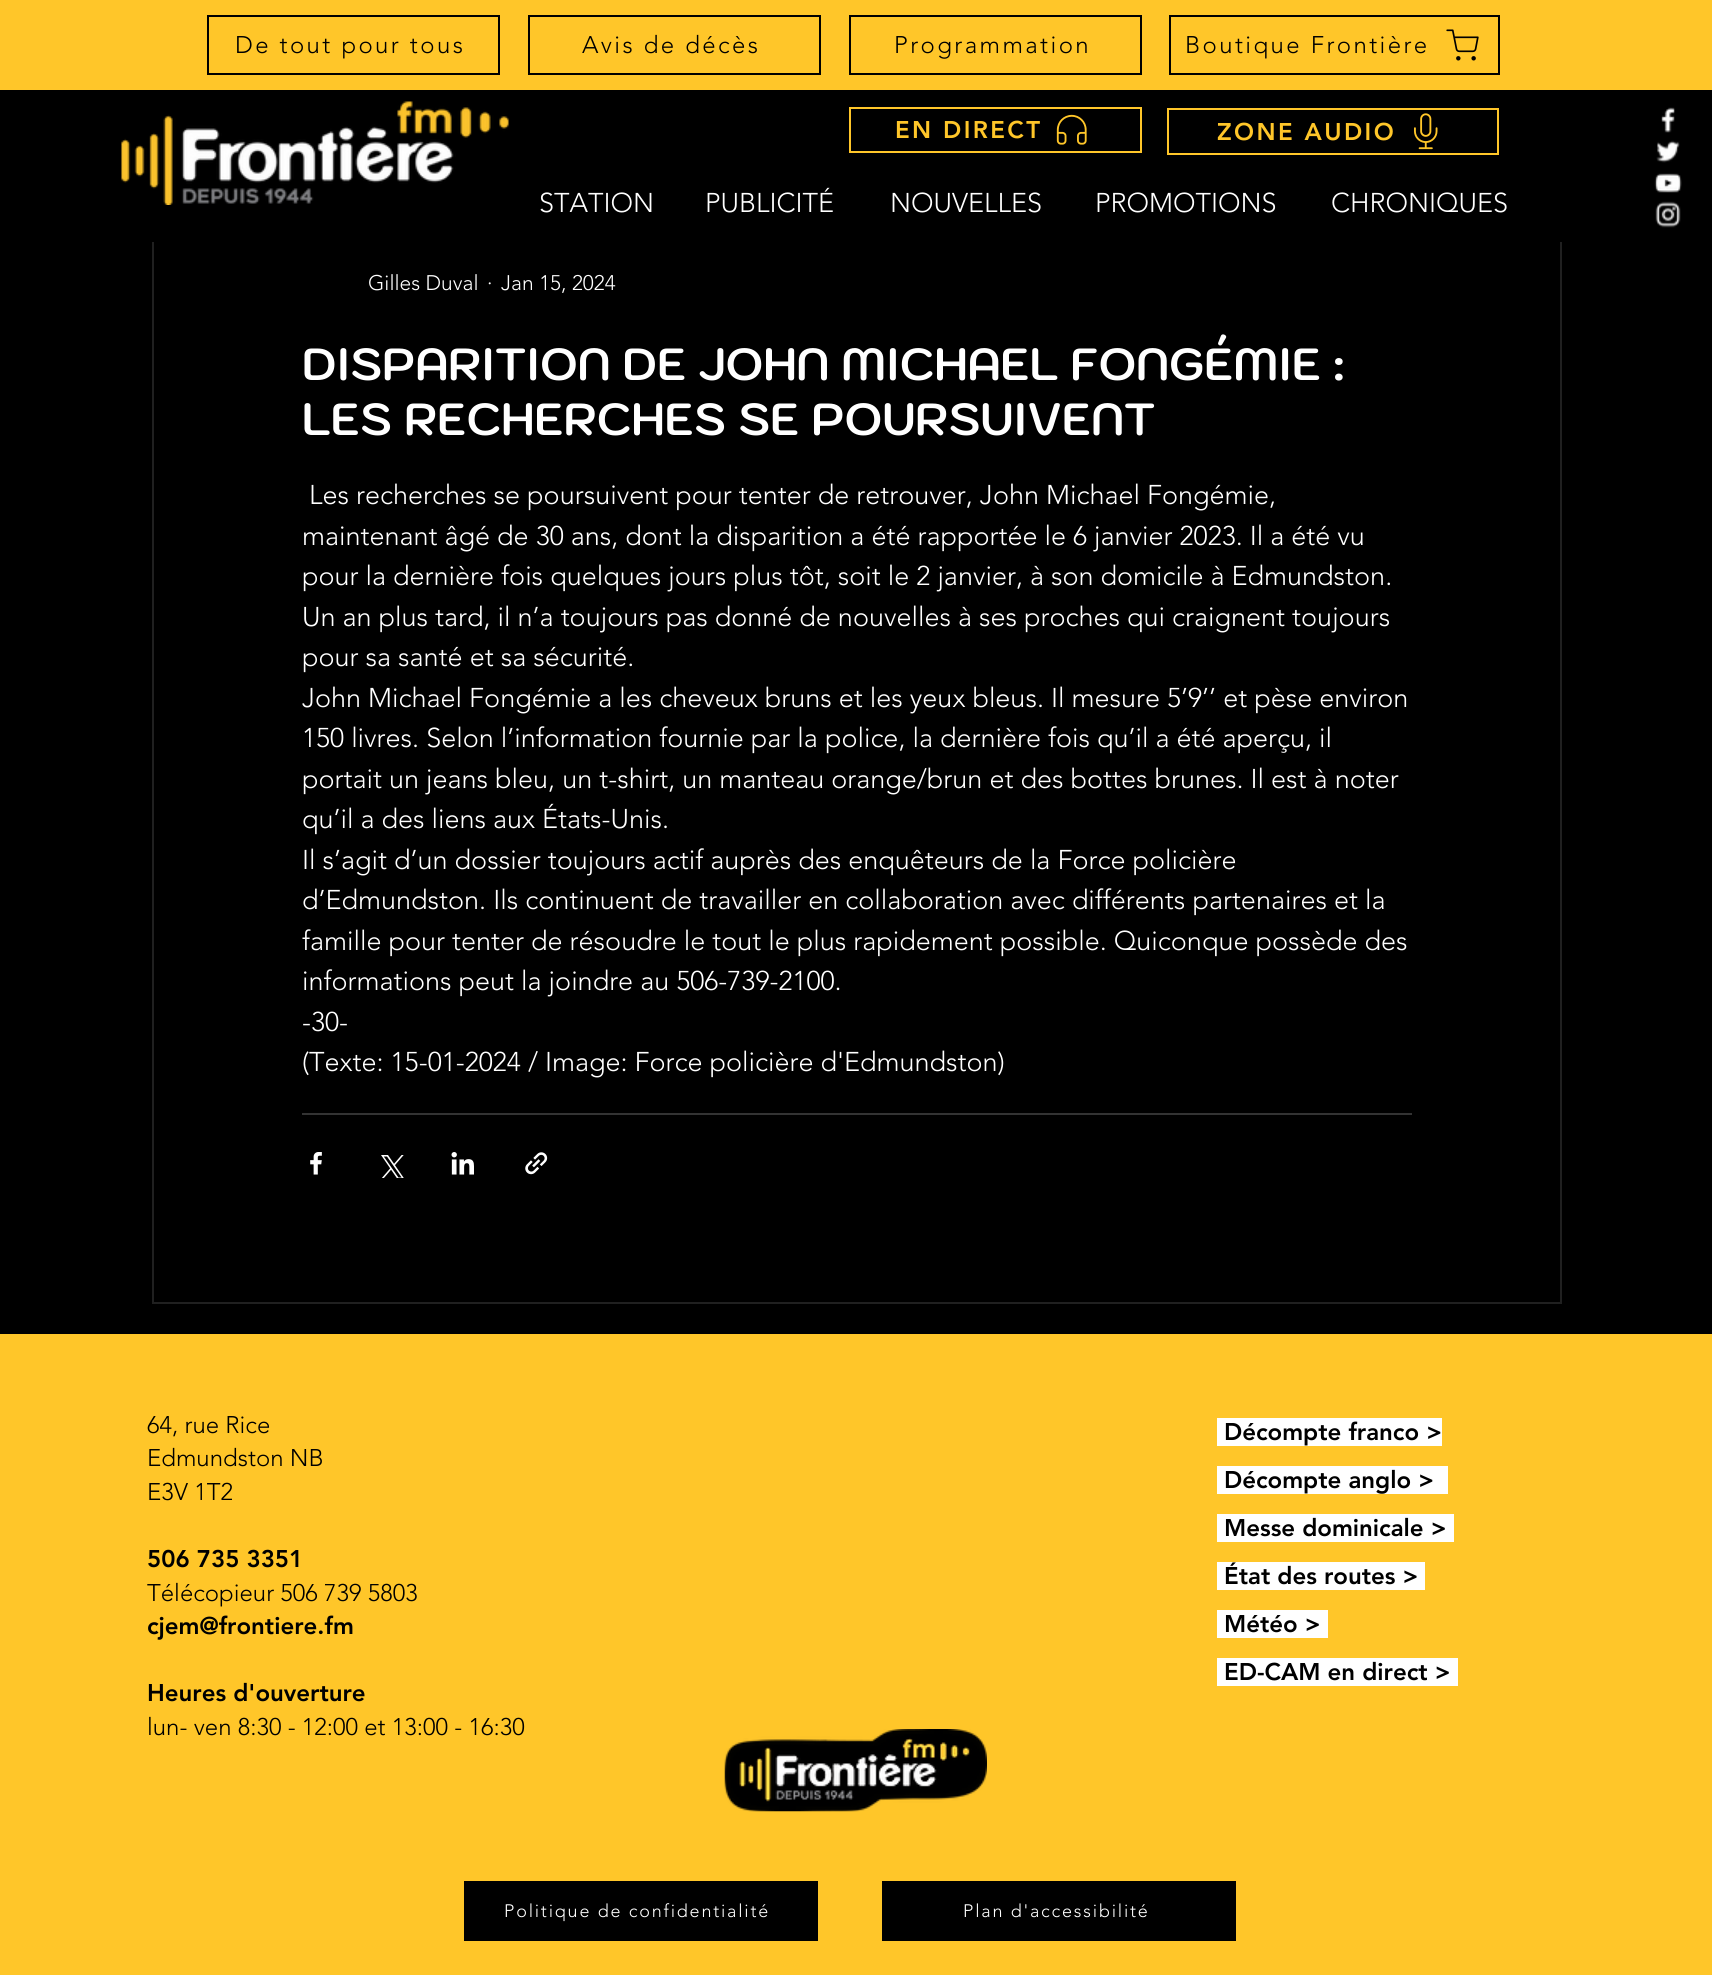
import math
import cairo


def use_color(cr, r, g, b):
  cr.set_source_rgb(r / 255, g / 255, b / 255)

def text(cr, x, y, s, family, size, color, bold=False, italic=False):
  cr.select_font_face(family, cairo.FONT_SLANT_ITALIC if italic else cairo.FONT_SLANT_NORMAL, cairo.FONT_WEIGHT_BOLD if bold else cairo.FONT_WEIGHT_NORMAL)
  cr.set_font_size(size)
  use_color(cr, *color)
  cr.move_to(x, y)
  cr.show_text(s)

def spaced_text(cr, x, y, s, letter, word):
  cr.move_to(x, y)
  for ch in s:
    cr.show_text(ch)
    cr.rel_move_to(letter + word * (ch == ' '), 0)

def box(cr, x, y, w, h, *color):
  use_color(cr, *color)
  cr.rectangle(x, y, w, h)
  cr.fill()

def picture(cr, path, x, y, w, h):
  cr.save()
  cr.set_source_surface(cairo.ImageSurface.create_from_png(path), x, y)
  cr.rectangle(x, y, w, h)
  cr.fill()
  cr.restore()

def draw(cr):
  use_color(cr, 0, 0, 0)
  cr.paint()
  box(cr, 0, 0, 1712, 90, 255, 198, 41)
  cr.rectangle(208, 16, 291, 58)
  use_color(cr, 0, 0, 0)
  cr.stroke()
  cr.rectangle(529, 16, 291, 58)
  cr.stroke()
  cr.rectangle(850, 16, 291, 58)
  cr.stroke()
  cr.rectangle(1170, 16, 329, 58)
  cr.stroke()
  picture(cr, "img_01.png", 1446, 29, 33, 32)
  cr.rectangle(153, 169, 1408, 1134)
  use_color(cr, 32, 32, 32)
  cr.stroke()
  box(cr, 152, 168, 1410, 74, 0, 0, 0)
  picture(cr, "img_02.png", 121, 101, 388, 104)
  cr.rectangle(850, 108, 291, 44)
  use_color(cr, 255, 198, 41)
  cr.stroke()
  picture(cr, "img_03.png", 1056, 114, 31, 31)
  cr.rectangle(1168, 109, 330, 45)
  cr.stroke()
  picture(cr, "img_04.png", 1414, 113, 24, 37)
  picture(cr, "img_05.png", 1661, 107, 14, 26)
  picture(cr, "img_06.png", 1656, 140, 24, 23)
  picture(cr, "img_07.png", 1654, 173, 28, 20)
  picture(cr, "img_08.png", 1655, 201, 26, 27)
  box(cr, 302, 1113, 1110, 2, 51, 51, 51)
  picture(cr, "img_09.png", 310, 1152, 12, 23)
  picture(cr, "img_10.png", 381, 1155, 23, 23)
  picture(cr, "img_11.png", 451, 1152, 23, 23)
  picture(cr, "img_12.png", 525, 1152, 23, 23)
  box(cr, 0, 1334, 1712, 641, 255, 198, 41)
  box(cr, 1217, 1418, 225, 28, 255, 255, 255)
  box(cr, 1217, 1466, 231, 28, 255, 255, 255)
  box(cr, 1217, 1514, 237, 28, 255, 255, 255)
  box(cr, 1217, 1562, 208, 28, 255, 255, 255)
  box(cr, 1217, 1610, 111, 28, 255, 255, 255)
  box(cr, 1217, 1658, 241, 28, 255, 255, 255)
  picture(cr, "img_13.png", 724, 1729, 263, 83)
  box(cr, 464, 1881, 354, 60, 0, 0, 0)
  box(cr, 882, 1881, 354, 60, 0, 0, 0)
  cr.select_font_face("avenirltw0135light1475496 Light")
  cr.set_font_size(24)
  spaced_text(cr, 235, 53, "De tout pour tous", 2.4, 0)
  spaced_text(cr, 582, 53, "Avis de décès", 2.4, 0)
  spaced_text(cr, 894, 53, "Programmation", 2.4, 0)
  spaced_text(cr, 1185, 53, "Boutique Frontière", 2.4, 0)
  cr.select_font_face("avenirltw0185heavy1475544 Black")
  use_color(cr, 255, 198, 41)
  spaced_text(cr, 895, 138, "EN DIRECT", 2.4, 0)
  spaced_text(cr, 1217, 140, "ZONE AUDIO", 2.4, 0)
  text(cr, 539, 212, "STATION", "avenirltw0135light1475496 Light", 27, (255, 255, 255))
  text(cr, 705, 212, "PUBLICITÉ", "avenirltw0135light1475496 Light", 27, (255, 255, 255))
  text(cr, 890, 212, "NOUVELLES", "avenirltw0135light1475496 Light", 27, (255, 255, 255))
  text(cr, 1095, 212, "PROMOTIONS", "avenirltw0135light1475496 Light", 27, (255, 255, 255))
  text(cr, 1331, 212, "CHRONIQUES", "avenirltw0135light1475496 Light", 27, (255, 255, 255))
  text(cr, 368, 290, "Gilles Duval", "avenirltw0135light1475496 Light", 21, (255, 255, 255))
  text(cr, 487, 290, "·", "avenirltw0135light1475496 Light", 21, (255, 255, 255))
  text(cr, 501, 290, "Jan 15, 2024", "avenirltw0135light1475496 Light", 21, (255, 255, 255))
  text(cr, 302, 380, "DISPARITION DE JOHN MICHAEL FONGÉMIE :", "Kodchasan", 45, (255, 255, 255), bold=True)
  text(cr, 302, 435, "LES RECHERCHES SE POURSUIVENT", "Kodchasan", 45, (255, 255, 255), bold=True)
  text(cr, 309, 504, "Les recherches se poursuivent pour tenter de retrouver, John Michael Fongémie,", "avenirltw0135light1475496 Light", 27, (255, 255, 255))
  text(cr, 302, 545, "maintenant âgé de 30 ans, dont la disparition a été rapportée le 6 janvier 2023. Il a été vu", "avenirltw0135light1475496 Light", 27, (255, 255, 255))
  text(cr, 302, 585, "pour la dernière fois quelques jours plus tôt, soit le 2 janvier, à son domicile à Edmundston.", "avenirltw0135light1475496 Light", 27, (255, 255, 255))
  text(cr, 302, 626, "Un an plus tard, il n’a toujours pas donné de nouvelles à ses proches qui craignent toujours", "avenirltw0135light1475496 Light", 27, (255, 255, 255))
  text(cr, 302, 666, "pour sa santé et sa sécurité.", "avenirltw0135light1475496 Light", 27, (255, 255, 255))
  text(cr, 302, 707, "John Michael Fongémie a les cheveux bruns et les yeux bleus. Il mesure 5’9’’ et pèse environ", "avenirltw0135light1475496 Light", 27, (255, 255, 255))
  text(cr, 302, 747, "150 livres. Selon l’information fournie par la police, la dernière fois qu’il a été aperçu, il", "avenirltw0135light1475496 Light", 27, (255, 255, 255))
  text(cr, 302, 788, "portait un jeans bleu, un t-shirt, un manteau orange/brun et des bottes brunes. Il est à noter", "avenirltw0135light1475496 Light", 27, (255, 255, 255))
  text(cr, 302, 828, "qu’il a des liens aux États-Unis.", "avenirltw0135light1475496 Light", 27, (255, 255, 255))
  text(cr, 302, 869, "Il s’agit d’un dossier toujours actif auprès des enquêteurs de la Force policière", "avenirltw0135light1475496 Light", 27, (255, 255, 255))
  text(cr, 302, 909, "d’Edmundston. Ils continuent de travailler en collaboration avec différents partenaires et la", "avenirltw0135light1475496 Light", 27, (255, 255, 255))
  text(cr, 302, 950, "famille pour tenter de résoudre le tout le plus rapidement possible. Quiconque possède des", "avenirltw0135light1475496 Light", 27, (255, 255, 255))
  text(cr, 302, 990, "informations peut la joindre au 506-739-2100.", "avenirltw0135light1475496 Light", 27, (255, 255, 255))
  text(cr, 302, 1031, "-30-", "avenirltw0135light1475496 Light", 27, (255, 255, 255))
  text(cr, 302, 1071, "(Texte: 15-01-2024 / Image: Force policière d'Edmundston)", "avenirltw0135light1475496 Light", 27, (255, 255, 255))
  text(cr, 147, 1433, "64, rue Rice", "avenirltw0135light1475496 Light", 24, (0, 0, 0))
  text(cr, 147, 1466, "Edmundston NB", "avenirltw0135light1475496 Light", 24, (0, 0, 0))
  text(cr, 147, 1500, "E3V 1T2", "avenirltw0135light1475496 Light", 24, (0, 0, 0))
  text(cr, 147, 1567, "506 735 3351", "avenirltw0185heavy1475544 Black", 24, (0, 0, 0))
  text(cr, 147, 1601, "Télécopieur 506 739 5803", "avenirltw0135light1475496 Light", 24, (0, 0, 0))
  text(cr, 147, 1634, "cjem@frontiere.fm", "avenirltw0185heavy1475544 Black", 24, (0, 0, 0))
  text(cr, 147, 1701, "Heures d'ouverture", "avenirltw0185heavy1475544 Black", 24, (0, 0, 0))
  text(cr, 147, 1735, "lun- ven 8:30 - 12:00 et 13:00 - 16:30", "avenirltw0135light1475496 Light", 24, (0, 0, 0))
  text(cr, 1224, 1440, "Décompte franco >", "avenirltw0185heavy1475544 Black", 24, (0, 0, 0))
  text(cr, 1224, 1488, "Décompte anglo >", "avenirltw0185heavy1475544 Black", 24, (0, 0, 0))
  text(cr, 1224, 1536, "Messe dominicale >", "avenirltw0185heavy1475544 Black", 24, (0, 0, 0))
  text(cr, 1224, 1584, "État des routes >", "avenirltw0185heavy1475544 Black", 24, (0, 0, 0))
  text(cr, 1224, 1632, "Météo >", "avenirltw0185heavy1475544 Black", 24, (0, 0, 0))
  text(cr, 1224, 1680, "ED-CAM en direct >", "avenirltw0185heavy1475544 Black", 24, (0, 0, 0))
  cr.select_font_face("avenirltw0135light1475496 Light")
  cr.set_font_size(18)
  use_color(cr, 255, 255, 255)
  spaced_text(cr, 504, 1917, "Politique de confidentialité", 1.8, 0)
  spaced_text(cr, 963, 1917, "Plan d'accessibilité", 1.8, 0)


surface = cairo.ImageSurface(cairo.FORMAT_RGB24, 1712, 1975)
cr = cairo.Context(surface)
options = cairo.FontOptions()
options.set_hint_metrics(cairo.HINT_METRICS_OFF)
options.set_hint_style(cairo.HINT_STYLE_NONE)
cr.set_font_options(options)
cr.set_miter_limit(4)
draw(cr)
surface.write_to_png("out.png")
